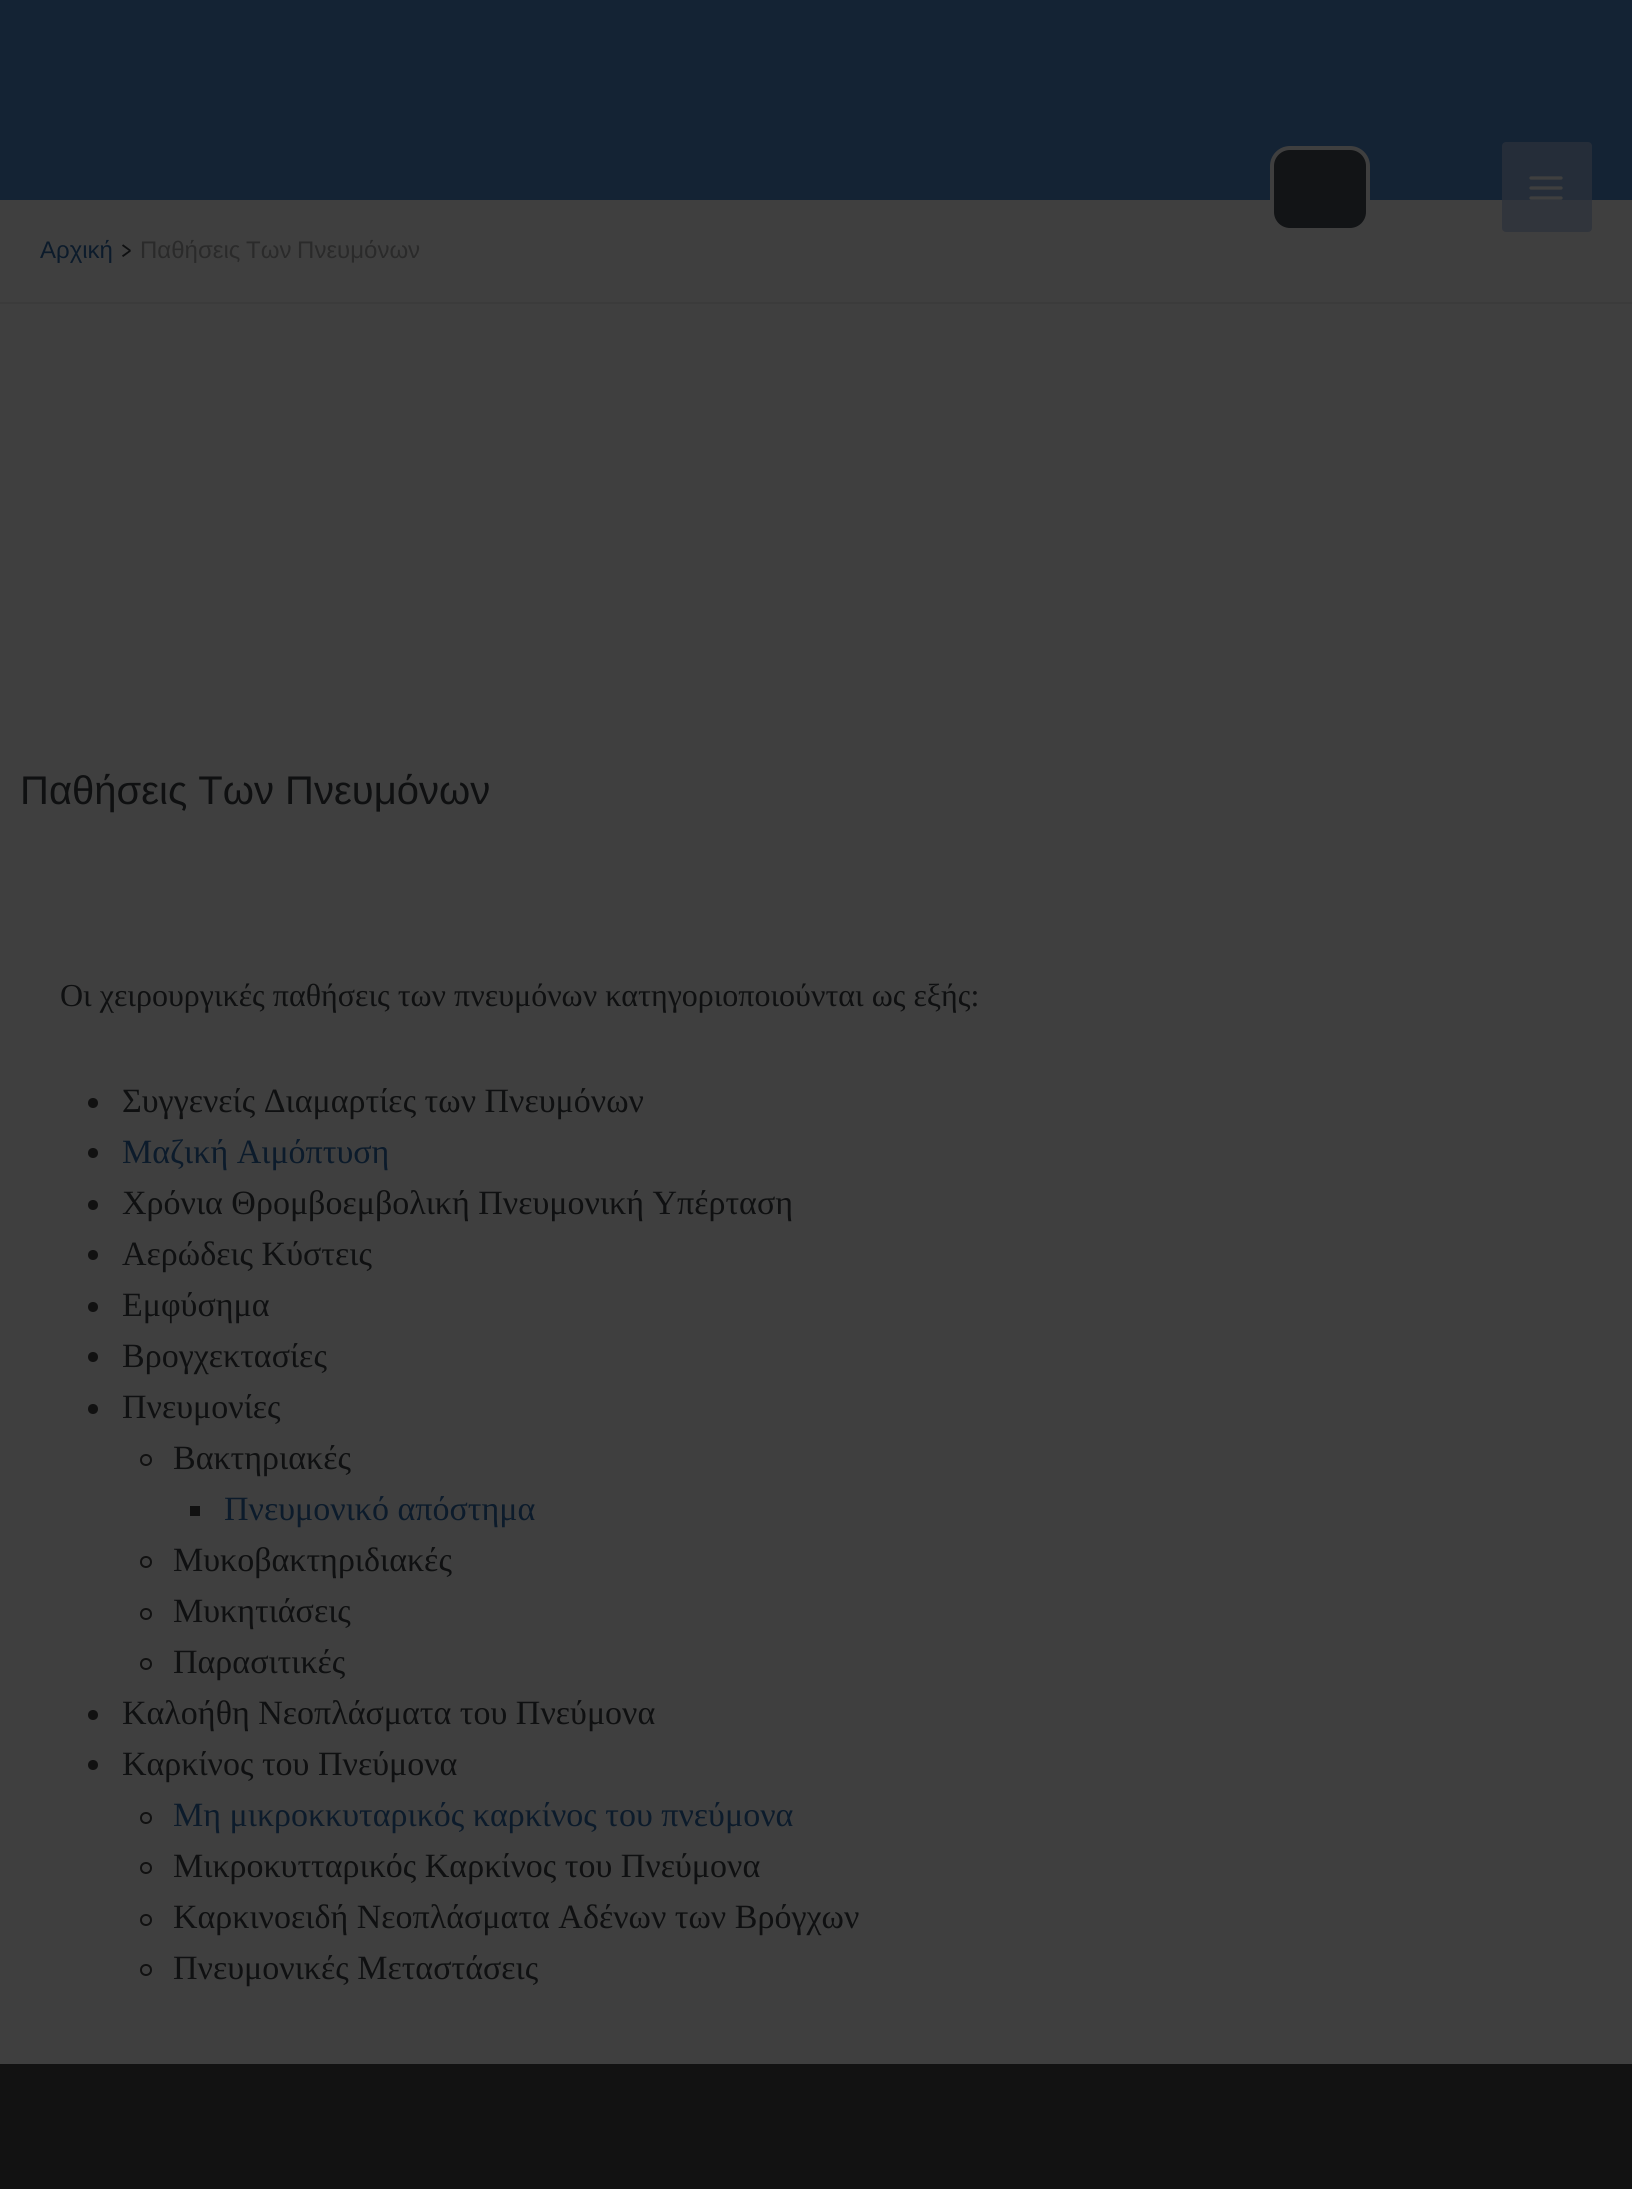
import math
import cairo


def use_color(cr, r, g, b):
  cr.set_source_rgb(r / 255, g / 255, b / 255)

def text(cr, x, y, s, family, size, color, bold=False, italic=False):
  cr.select_font_face(family, cairo.FONT_SLANT_ITALIC if italic else cairo.FONT_SLANT_NORMAL, cairo.FONT_WEIGHT_BOLD if bold else cairo.FONT_WEIGHT_NORMAL)
  cr.set_font_size(size)
  use_color(cr, *color)
  cr.move_to(x, y)
  cr.show_text(s)

def spaced_text(cr, x, y, s, letter, word):
  cr.move_to(x, y)
  for ch in s:
    cr.show_text(ch)
    cr.rel_move_to(letter + word * (ch == ' '), 0)

def box(cr, x, y, w, h, *color):
  use_color(cr, *color)
  cr.rectangle(x, y, w, h)
  cr.fill()

def round_rect(cr, x, y, w, h, r):
  cr.new_sub_path()
  for i, (u, v) in enumerate([(x + w - r, y + h - r), (x + r, y + h - r), (x + r, y + r), (x + w - r, y + r)]):
    cr.arc(u, v, r, i * math.pi / 2, (i + 1) * math.pi / 2)
  cr.close_path()

def picture(cr, path, x, y, w, h):
  cr.save()
  cr.set_source_surface(cairo.ImageSurface.create_from_png(path), x, y)
  cr.rectangle(x, y, w, h)
  cr.fill()
  cr.restore()

def draw(cr):
  use_color(cr, 63, 63, 63)
  cr.paint()
  box(cr, 0, 0, 1632, 200, 20, 35, 52)
  use_color(cr, 18, 20, 22)
  round_rect(cr, 1272, 148, 96, 82, 18)
  cr.fill_preserve()
  use_color(cr, 63, 63, 63)
  cr.set_line_width(4)
  cr.stroke()
  cr.set_source_rgba(0.173, 0.196, 0.235, 0.71)
  round_rect(cr, 1502, 142, 90, 90, 4)
  cr.fill()
  picture(cr, "img_01.png", 1529, 176, 34, 24)
  box(cr, 0, 302, 1632, 2, 59, 59, 59)
  use_color(cr, 17, 17, 17)
  cr.arc(93, 1103, 5, 0, 2 * math.pi)
  cr.fill()
  cr.arc(93, 1153, 5, 0, 2 * math.pi)
  cr.fill()
  cr.arc(93, 1205, 5, 0, 2 * math.pi)
  cr.fill()
  cr.arc(93, 1255, 5, 0, 2 * math.pi)
  cr.fill()
  cr.arc(93, 1307, 5, 0, 2 * math.pi)
  cr.fill()
  cr.arc(93, 1357, 5, 0, 2 * math.pi)
  cr.fill()
  cr.arc(93, 1409, 5, 0, 2 * math.pi)
  cr.fill()
  cr.arc(146, 1460, 5, 0, 2 * math.pi)
  cr.set_line_width(2)
  cr.stroke()
  box(cr, 190, 1506, 10, 10, 17, 17, 17)
  cr.arc(146, 1562, 5, 0, 2 * math.pi)
  cr.stroke()
  cr.arc(146, 1614, 5, 0, 2 * math.pi)
  cr.stroke()
  cr.arc(146, 1664, 5, 0, 2 * math.pi)
  cr.stroke()
  cr.arc(93, 1715, 5, 0, 2 * math.pi)
  cr.fill()
  cr.arc(93, 1765, 5, 0, 2 * math.pi)
  cr.fill()
  cr.arc(146, 1818, 5, 0, 2 * math.pi)
  cr.stroke()
  cr.arc(146, 1868, 5, 0, 2 * math.pi)
  cr.stroke()
  cr.arc(146, 1920, 5, 0, 2 * math.pi)
  cr.stroke()
  cr.arc(146, 1970, 5, 0, 2 * math.pi)
  cr.stroke()
  box(cr, 0, 2064, 1632, 125, 18, 18, 18)
  text(cr, 40, 258, "Αρχική", "Liberation Sans", 24, (12, 27, 43))
  text(cr, 120, 258, ">", "Karla", 24, (15, 16, 17))
  cr.select_font_face("Liberation Sans")
  use_color(cr, 42, 42, 42)
  spaced_text(cr, 140, 258, "Παθήσεις Των Πνευμόνων", 0, -1)
  text(cr, 20, 804, "Παθήσεις Των Πνευμόνων", "Liberation Sans", 40, (15, 16, 17))
  text(cr, 60, 1006, "Οι χειρουργικές παθήσεις των πνευμόνων κατηγοριοποιούνται ως εξής:", "Liberation Serif", 32, (15, 16, 17))
  text(cr, 122, 1112, "Συγγενείς Διαμαρτίες των Πνευμόνων", "Liberation Serif", 34, (15, 16, 17))
  text(cr, 122, 1163, "Μαζική Αιμόπτυση", "Liberation Serif", 34, (12, 27, 43))
  text(cr, 122, 1214, "Χρόνια Θρομβοεμβολική Πνευμονική Υπέρταση", "Liberation Serif", 34, (15, 16, 17))
  text(cr, 122, 1265, "Αερώδεις Κύστεις", "Liberation Serif", 34, (15, 16, 17))
  text(cr, 122, 1316, "Εμφύσημα", "Liberation Serif", 34, (15, 16, 17))
  text(cr, 122, 1367, "Βρογχεκτασίες", "Liberation Serif", 34, (15, 16, 17))
  text(cr, 122, 1418, "Πνευμονίες", "Liberation Serif", 34, (15, 16, 17))
  text(cr, 173, 1469, "Βακτηριακές", "Liberation Serif", 34, (15, 16, 17))
  text(cr, 224, 1520, "Πνευμονικό απόστημα", "Liberation Serif", 34, (12, 27, 43))
  text(cr, 173, 1571, "Μυκοβακτηριδιακές", "Liberation Serif", 34, (15, 16, 17))
  text(cr, 173, 1622, "Μυκητιάσεις", "Liberation Serif", 34, (15, 16, 17))
  text(cr, 173, 1673, "Παρασιτικές", "Liberation Serif", 34, (15, 16, 17))
  text(cr, 122, 1724, "Καλοήθη Νεοπλάσματα του Πνεύμονα", "Liberation Serif", 34, (15, 16, 17))
  text(cr, 122, 1775, "Καρκίνος του Πνεύμονα", "Liberation Serif", 34, (15, 16, 17))
  text(cr, 173, 1826, "Μη μικροκκυταρικός καρκίνος του πνεύμονα", "Liberation Serif", 34, (12, 27, 43))
  text(cr, 173, 1877, "Μικροκυτταρικός Καρκίνος του Πνεύμονα", "Liberation Serif", 34, (15, 16, 17))
  text(cr, 173, 1928, "Καρκινοειδή Νεοπλάσματα Αδένων των Βρόγχων", "Liberation Serif", 34, (15, 16, 17))
  text(cr, 173, 1979, "Πνευμονικές Μεταστάσεις", "Liberation Serif", 34, (15, 16, 17))


surface = cairo.ImageSurface(cairo.FORMAT_RGB24, 1632, 2189)
cr = cairo.Context(surface)
options = cairo.FontOptions()
options.set_hint_metrics(cairo.HINT_METRICS_OFF)
options.set_hint_style(cairo.HINT_STYLE_NONE)
cr.set_font_options(options)
cr.set_miter_limit(4)
draw(cr)
surface.write_to_png("out.png")
